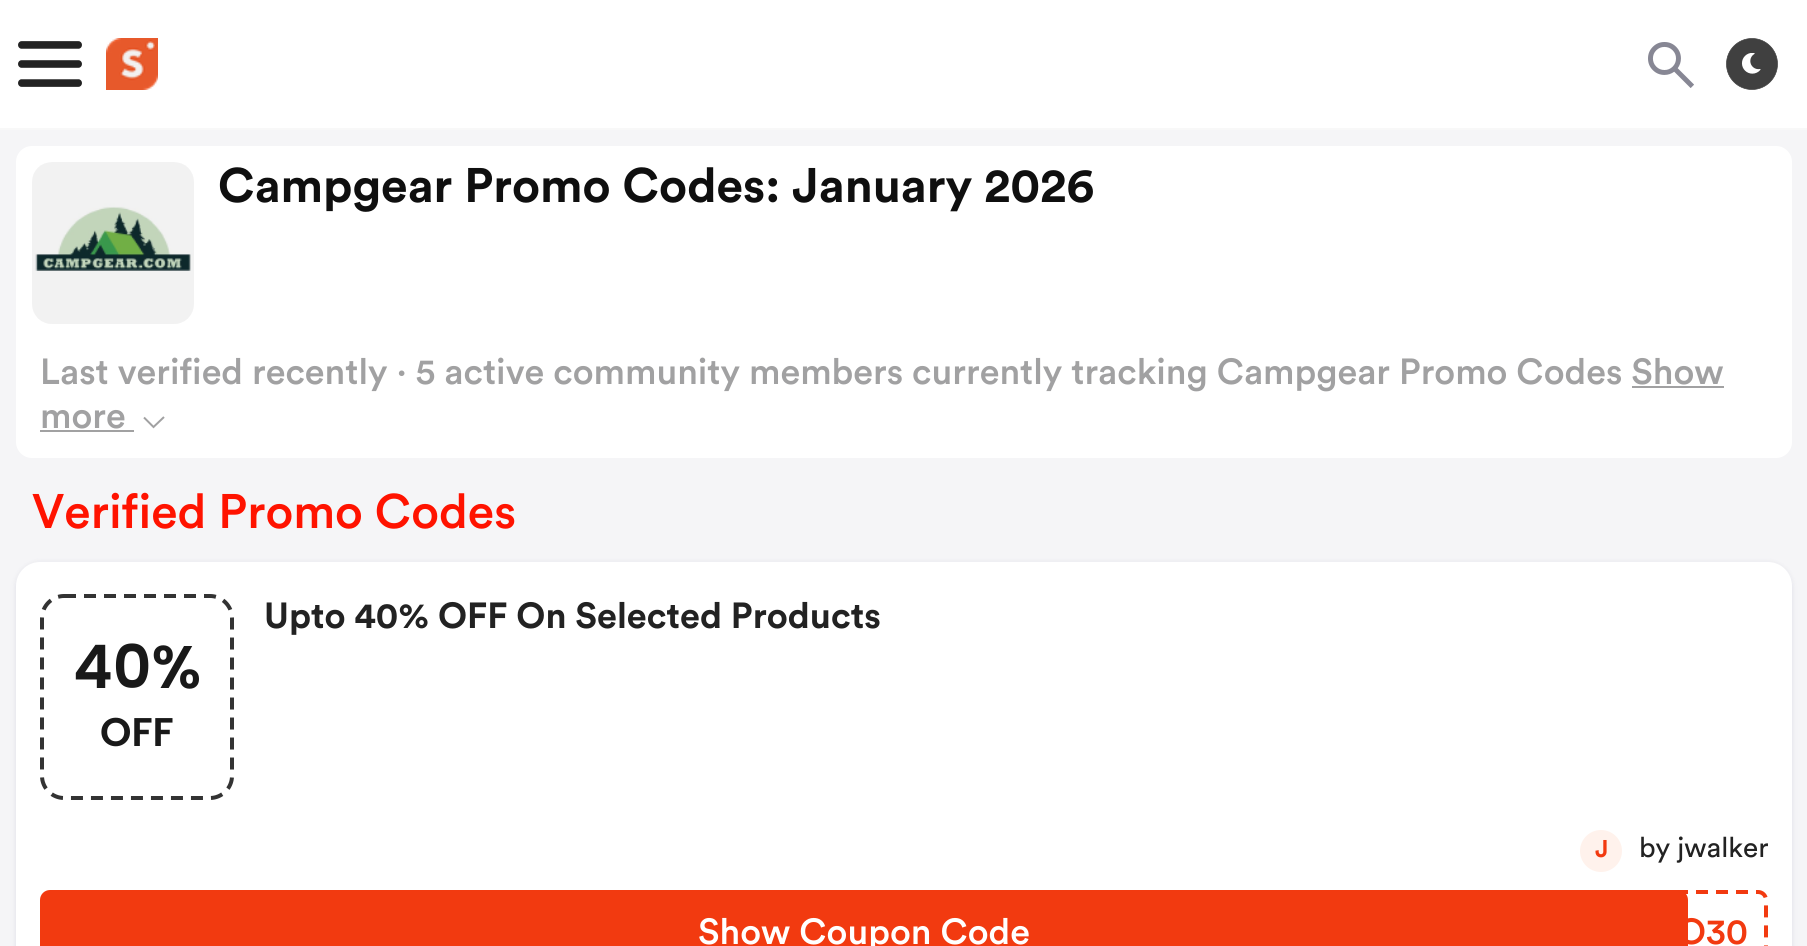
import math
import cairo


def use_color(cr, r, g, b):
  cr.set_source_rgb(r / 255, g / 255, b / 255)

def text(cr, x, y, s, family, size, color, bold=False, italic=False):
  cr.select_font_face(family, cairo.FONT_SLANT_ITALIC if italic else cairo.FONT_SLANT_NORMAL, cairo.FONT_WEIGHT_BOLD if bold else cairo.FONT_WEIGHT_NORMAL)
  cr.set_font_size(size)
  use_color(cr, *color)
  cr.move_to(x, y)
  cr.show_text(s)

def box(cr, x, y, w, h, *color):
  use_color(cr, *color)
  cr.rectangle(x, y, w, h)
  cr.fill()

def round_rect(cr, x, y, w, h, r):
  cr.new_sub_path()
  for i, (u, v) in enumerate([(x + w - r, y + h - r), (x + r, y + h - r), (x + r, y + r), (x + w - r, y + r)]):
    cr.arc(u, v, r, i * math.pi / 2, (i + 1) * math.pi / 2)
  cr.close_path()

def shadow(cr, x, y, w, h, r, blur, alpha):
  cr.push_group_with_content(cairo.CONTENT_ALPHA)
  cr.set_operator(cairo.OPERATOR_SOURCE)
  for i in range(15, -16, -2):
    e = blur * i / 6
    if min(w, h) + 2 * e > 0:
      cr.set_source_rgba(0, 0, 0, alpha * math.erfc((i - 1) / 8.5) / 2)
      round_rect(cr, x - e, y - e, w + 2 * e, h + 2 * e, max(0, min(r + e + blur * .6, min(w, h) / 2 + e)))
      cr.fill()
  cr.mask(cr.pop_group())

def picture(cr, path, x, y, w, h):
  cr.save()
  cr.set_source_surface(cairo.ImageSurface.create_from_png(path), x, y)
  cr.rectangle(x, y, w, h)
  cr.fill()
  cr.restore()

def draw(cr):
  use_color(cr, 245, 245, 247)
  cr.paint()
  box(cr, 0, 0, 1807, 128, 255, 255, 255)
  box(cr, 0, 128, 1807, 2, 248, 248, 248)
  picture(cr, "img_01.png", 18, 41, 64, 46)
  picture(cr, "img_02.png", 106, 38, 52, 52)
  picture(cr, "img_03.png", 1648, 42, 46, 46)
  picture(cr, "img_04.png", 1726, 38, 52, 52)
  use_color(cr, 255, 255, 255)
  round_rect(cr, 16, 146, 1776, 312, 16)
  cr.fill()
  picture(cr, "img_05.png", 32, 162, 162, 162)
  box(cr, 1632, 386, 92, 2, 161, 161, 162)
  box(cr, 40, 430, 94, 2, 161, 161, 162)
  cr.new_path()
  cr.move_to(164, 417)
  cr.line_to(153.5, 427)
  cr.line_to(144, 417.5)
  cr.stroke()
  use_color(cr, 189, 189, 206)
  shadow(cr, 16, 562, 1776, 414, 24, 2, 0.2)
  shadow(cr, 16, 564, 1776, 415, 24, 3, 0.25)
  use_color(cr, 255, 255, 255)
  round_rect(cr, 16, 562, 1776, 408, 24)
  cr.fill()
  cr.new_path()
  cr.move_to(64, 596)
  cr.line_to(210, 596)
  cr.curve_to(222, 596, 232, 606, 232, 618)
  cr.line_to(232, 776)
  cr.curve_to(232, 788, 222, 798, 210, 798)
  cr.line_to(64, 798)
  cr.curve_to(52, 798, 42, 788, 42, 776)
  cr.line_to(42, 618)
  cr.curve_to(42, 606, 52, 596, 64, 596)
  cr.close_path()
  use_color(cr, 51, 51, 51)
  cr.set_line_width(4)
  cr.set_dash([12, 8])
  cr.stroke()
  use_color(cr, 255, 242, 236)
  cr.arc(1601, 851, 21, 0, 2 * math.pi)
  cr.fill()
  cr.new_path()
  cr.move_to(1596, 892)
  cr.line_to(1758, 892)
  cr.curve_to(1762.5, 892, 1766, 895.5, 1766, 900)
  cr.line_to(1766, 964)
  cr.curve_to(1766, 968.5, 1762.5, 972, 1758, 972)
  cr.line_to(1596, 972)
  cr.curve_to(1591.5, 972, 1588, 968.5, 1588, 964)
  cr.line_to(1588, 900)
  cr.curve_to(1588, 895.5, 1591.5, 892, 1596, 892)
  cr.close_path()
  use_color(cr, 242, 58, 16)
  cr.stroke()
  round_rect(cr, 40, 890, 1648, 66, 10)
  cr.fill()
  text(cr, 218, 202, "Campgear Promo Codes: January 2026", "Circular", 48, (15, 15, 15), bold=True)
  text(cr, 40, 384, "Last verified recently · 5 active community members currently tracking Campgear Promo Codes Show", "Circular Medium", 36, (161, 161, 162))
  text(cr, 40, 428, "more", "Circular Medium", 36, (161, 161, 162))
  text(cr, 32, 528, "Verified Promo Codes", "Circular Medium", 48, (255, 19, 0))
  text(cr, 264, 628, "Upto 40% OFF On Selected Products", "Circular", 36, (34, 34, 34), bold=True)
  text(cr, 73, 688, "40%", "Poppins SemiBold", 60, (25, 25, 25))
  text(cr, 100, 746, "OFF", "Poppins SemiBold", 40, (25, 25, 25))
  text(cr, 1595, 857, "J", "Circular", 24, (242, 58, 16), bold=True)
  text(cr, 1639, 857, "by jwalker", "Circular", 28, (34, 34, 34))
  text(cr, 698, 944, "Show Coupon Code", "Circular Medium", 36, (255, 255, 255))
  text(cr, 1677, 944, "O30", "Circular Medium", 36, (242, 58, 16))


surface = cairo.ImageSurface(cairo.FORMAT_RGB24, 1807, 946)
cr = cairo.Context(surface)
options = cairo.FontOptions()
options.set_hint_metrics(cairo.HINT_METRICS_OFF)
options.set_hint_style(cairo.HINT_STYLE_NONE)
cr.set_font_options(options)
cr.set_miter_limit(4)
draw(cr)
surface.write_to_png("out.png")
